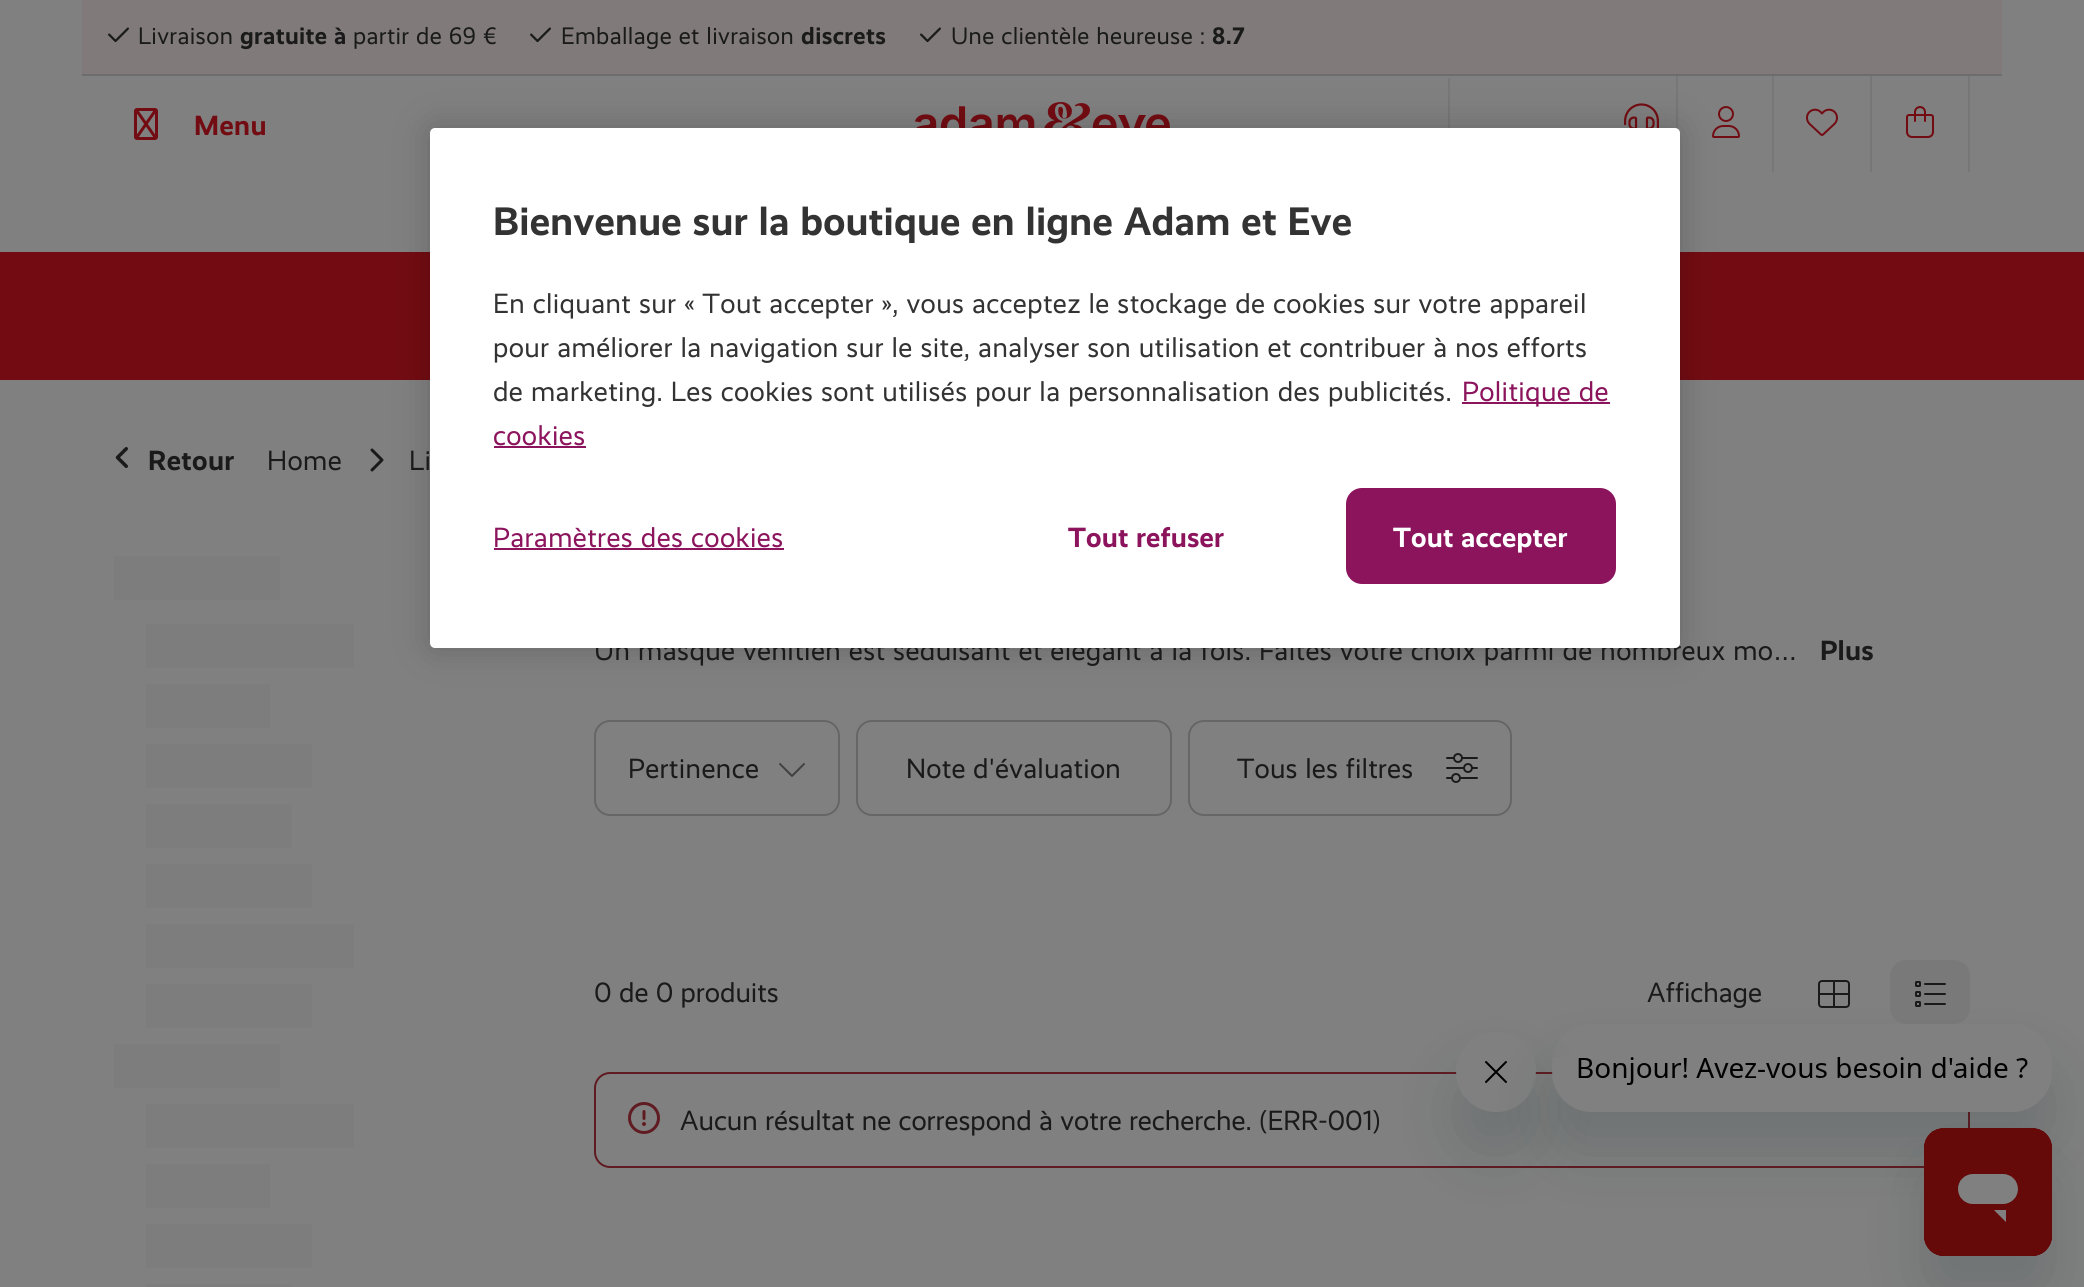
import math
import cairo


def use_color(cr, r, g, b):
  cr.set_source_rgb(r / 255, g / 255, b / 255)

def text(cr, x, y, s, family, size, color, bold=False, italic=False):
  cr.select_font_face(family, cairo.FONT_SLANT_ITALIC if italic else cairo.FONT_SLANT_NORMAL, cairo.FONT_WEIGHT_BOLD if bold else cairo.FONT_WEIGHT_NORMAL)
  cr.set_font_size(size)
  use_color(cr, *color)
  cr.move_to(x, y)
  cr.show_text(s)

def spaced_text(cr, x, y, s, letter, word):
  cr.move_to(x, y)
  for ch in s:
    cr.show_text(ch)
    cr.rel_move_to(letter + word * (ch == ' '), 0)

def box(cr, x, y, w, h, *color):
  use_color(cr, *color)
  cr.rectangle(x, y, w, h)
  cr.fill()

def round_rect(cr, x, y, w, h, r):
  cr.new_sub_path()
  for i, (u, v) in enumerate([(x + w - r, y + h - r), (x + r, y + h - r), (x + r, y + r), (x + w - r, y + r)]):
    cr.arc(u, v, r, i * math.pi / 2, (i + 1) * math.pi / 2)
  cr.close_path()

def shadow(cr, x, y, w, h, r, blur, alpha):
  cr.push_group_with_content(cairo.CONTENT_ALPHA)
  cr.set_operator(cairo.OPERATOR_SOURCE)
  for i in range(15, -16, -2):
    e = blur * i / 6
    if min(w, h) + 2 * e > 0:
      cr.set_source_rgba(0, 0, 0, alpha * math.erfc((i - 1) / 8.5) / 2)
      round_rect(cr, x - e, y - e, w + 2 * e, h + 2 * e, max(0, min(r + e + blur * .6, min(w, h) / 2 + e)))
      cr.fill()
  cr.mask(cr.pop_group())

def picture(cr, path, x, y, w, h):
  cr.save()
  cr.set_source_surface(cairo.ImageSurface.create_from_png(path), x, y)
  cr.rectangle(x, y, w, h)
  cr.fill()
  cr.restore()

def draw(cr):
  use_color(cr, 128, 128, 128)
  cr.paint()
  box(cr, 82, 0, 1920, 74, 128, 122, 122)
  box(cr, 82, 74, 1920, 2, 109, 109, 109)
  picture(cr, "img_01.png", 108, 27, 21, 16)
  picture(cr, "img_01.png", 530, 27, 21, 16)
  picture(cr, "img_01.png", 920, 27, 21, 16)
  picture(cr, "img_02.png", 134, 108, 24, 32)
  picture(cr, "img_03.png", 915, 102, 255, 26)
  box(cr, 1448, 78, 2, 50, 119, 119, 119)
  picture(cr, "img_04.png", 1624, 103, 35, 25)
  box(cr, 1676, 76, 2, 53, 119, 119, 119)
  picture(cr, "img_05.png", 1712, 106, 28, 32)
  box(cr, 1772, 76, 2, 96, 119, 119, 119)
  picture(cr, "img_06.png", 1806, 108, 32, 28)
  box(cr, 1968, 76, 2, 96, 119, 119, 119)
  box(cr, 1870, 76, 2, 96, 119, 119, 119)
  picture(cr, "img_07.png", 1906, 106, 28, 32)
  box(cr, 0, 252, 2084, 128, 114, 12, 18)
  picture(cr, "img_08.png", 115, 447, 13, 21)
  picture(cr, "img_09.png", 370, 448, 14, 24)
  use_color(cr, 0, 0, 0)
  shadow(cr, 430, 128, 1250, 520, 5, 18, 0.2)
  box(cr, 114, 556, 166, 44, 125, 125, 125)
  box(cr, 146, 624, 208, 44, 125, 125, 125)
  box(cr, 146, 684, 124, 44, 125, 125, 125)
  box(cr, 146, 744, 166, 44, 125, 125, 125)
  box(cr, 146, 804, 146, 44, 125, 125, 125)
  box(cr, 146, 864, 166, 44, 125, 125, 125)
  box(cr, 146, 924, 208, 44, 125, 125, 125)
  box(cr, 146, 984, 166, 44, 125, 125, 125)
  box(cr, 114, 1044, 166, 44, 125, 125, 125)
  box(cr, 146, 1104, 208, 44, 125, 125, 125)
  box(cr, 146, 1164, 124, 44, 125, 125, 125)
  box(cr, 146, 1224, 166, 44, 125, 125, 125)
  box(cr, 146, 1284, 146, 3, 125, 125, 125)
  round_rect(cr, 595, 721, 244, 94, 15)
  use_color(cr, 102, 102, 102)
  cr.stroke()
  picture(cr, "img_10.png", 779, 763, 26, 14)
  round_rect(cr, 857, 721, 314, 94, 15)
  cr.stroke()
  round_rect(cr, 1189, 721, 322, 94, 15)
  cr.stroke()
  picture(cr, "img_11.png", 1446, 753, 32, 30)
  picture(cr, "img_12.png", 1818, 980, 32, 28)
  use_color(cr, 121, 121, 121)
  round_rect(cr, 1890, 960, 80, 64, 16)
  cr.fill()
  picture(cr, "img_13.png", 1915, 981, 31, 26)
  round_rect(cr, 595, 1073, 1374, 94, 15)
  use_color(cr, 96, 27, 34)
  cr.stroke()
  picture(cr, "img_14.png", 628, 1102, 32, 32)
  cr.save()
  cr.set_fill_rule(cairo.FILL_RULE_EVEN_ODD)
  cr.new_path()
  cr.move_to(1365, 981)
  cr.line_to(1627, 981)
  cr.line_to(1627, 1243)
  cr.line_to(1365, 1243)
  cr.close_path()
  cr.move_to(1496, 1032)
  cr.curve_to(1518, 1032, 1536, 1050, 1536, 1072)
  cr.curve_to(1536, 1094, 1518, 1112, 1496, 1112)
  cr.curve_to(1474, 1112, 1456, 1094, 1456, 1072)
  cr.curve_to(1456, 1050, 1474, 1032, 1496, 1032)
  cr.close_path()
  cr.clip()
  use_color(cr, 12, 37, 39)
  shadow(cr, 1456, 1072, 80, 80, 40, 30, 0.15)
  cr.restore()
  picture(cr, "img_16.png", 1456, 1061, 80, 22)
  cr.save()
  cr.set_fill_rule(cairo.FILL_RULE_EVEN_ODD)
  cr.new_path()
  cr.move_to(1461, 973)
  cr.line_to(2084, 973)
  cr.line_to(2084, 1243)
  cr.line_to(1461, 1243)
  cr.close_path()
  cr.move_to(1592, 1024)
  cr.line_to(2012, 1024)
  cr.curve_to(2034, 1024, 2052, 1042, 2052, 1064)
  cr.line_to(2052, 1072)
  cr.curve_to(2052, 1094, 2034, 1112, 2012, 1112)
  cr.line_to(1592, 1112)
  cr.curve_to(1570, 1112, 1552, 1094, 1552, 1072)
  cr.line_to(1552, 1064)
  cr.curve_to(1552, 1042, 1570, 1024, 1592, 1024)
  cr.close_path()
  cr.clip()
  use_color(cr, 12, 37, 39)
  shadow(cr, 1552, 1064, 500, 88, 40, 30, 0.15)
  cr.restore()
  picture(cr, "img_15.png", 1552, 1057, 476, 55)
  use_color(cr, 12, 37, 39)
  shadow(cr, 1924, 1168, 128, 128, 20, 30, 0.15)
  picture(cr, "img_17.png", 1924, 1128, 128, 128)
  cr.select_font_face("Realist")
  cr.set_font_size(24)
  use_color(cr, 26, 26, 26)
  spaced_text(cr, 138, 44, "Livraison", 0.4, 0)
  cr.select_font_face("Realist", cairo.FONT_SLANT_NORMAL, cairo.FONT_WEIGHT_BOLD)
  spaced_text(cr, 240, 44, "gratuite à", 0.4, 0)
  cr.select_font_face("Realist")
  spaced_text(cr, 353, 44, "partir de 69 €", 0.4, 0)
  spaced_text(cr, 561, 44, "Emballage et livraison", 0.4, 0)
  cr.select_font_face("Realist", cairo.FONT_SLANT_NORMAL, cairo.FONT_WEIGHT_BOLD)
  spaced_text(cr, 801, 44, "discrets", 0.4, 0)
  cr.select_font_face("Realist")
  spaced_text(cr, 951, 44, "Une clientèle heureuse :", 0.4, 0)
  cr.select_font_face("Realist", cairo.FONT_SLANT_NORMAL, cairo.FONT_WEIGHT_BOLD)
  spaced_text(cr, 1212, 44, "8.7", 0.4, 0)
  cr.set_font_size(28)
  use_color(cr, 114, 12, 18)
  spaced_text(cr, 194, 135, "Menu", 0.4, 0)
  use_color(cr, 26, 26, 26)
  spaced_text(cr, 148, 470, "Retour", 0.4, 0)
  cr.select_font_face("Realist")
  spaced_text(cr, 267, 470, "Home", 0.4, 0)
  spaced_text(cr, 409, 470, "Li", 0.4, 0)
  spaced_text(cr, 594, 660, "Un masque vénitien est séduisant et élégant à la fois. Faites votre choix parmi de nombreux mo…", 0.4, 0)
  use_color(cr, 255, 255, 255)
  round_rect(cr, 430, 128, 1250, 520, 5)
  cr.fill()
  use_color(cr, 139, 20, 93)
  round_rect(cr, 1346, 488, 270, 96, 16)
  cr.fill()
  cr.select_font_face("Realist", cairo.FONT_SLANT_NORMAL, cairo.FONT_WEIGHT_BOLD)
  use_color(cr, 255, 255, 255)
  spaced_text(cr, 1393, 547, "Tout accepter", 0.2, 0)
  use_color(cr, 139, 20, 93)
  spaced_text(cr, 1068, 547, "Tout refuser", 0.2, 0)
  cr.select_font_face("Realist")
  spaced_text(cr, 493, 547, "Paramètres des cookies", 0.4, 0)
  box(cr, 494, 548, 290, 2, 139, 20, 93)
  spaced_text(cr, 493, 445, "cookies", 0.4, 0)
  box(cr, 494, 446, 92, 2, 139, 20, 93)
  box(cr, 1462, 402, 148, 2, 139, 20, 93)
  spaced_text(cr, 1462, 401, "Politique de", 0.4, 0)
  use_color(cr, 51, 51, 51)
  spaced_text(cr, 493, 401, "de marketing. Les cookies sont utilisés pour la personnalisation des publicités.", 0.4, 0)
  spaced_text(cr, 493, 357, "pour améliorer la navigation sur le site, analyser son utilisation et contribuer à nos efforts", 0.4, 0)
  spaced_text(cr, 493, 313, "En cliquant sur « Tout accepter », vous acceptez le stockage de cookies sur votre appareil", 0.4, 0)
  cr.select_font_face("Realist", cairo.FONT_SLANT_NORMAL, cairo.FONT_WEIGHT_BOLD)
  cr.set_font_size(40)
  spaced_text(cr, 493, 235, "Bienvenue sur la boutique en ligne Adam et Eve", 0.2, 0)
  cr.set_font_size(28)
  use_color(cr, 26, 26, 26)
  spaced_text(cr, 1820, 660, "Plus", 0.2, 0)
  cr.select_font_face("Realist")
  spaced_text(cr, 628, 778, "Pertinence", 0.4, 0)
  spaced_text(cr, 906, 778, "Note d'évaluation", 0.2, 0)
  spaced_text(cr, 1237, 778, "Tous les filtres", 0.2, 0)
  text(cr, 594, 1002, "0 de 0 produits", "Realist", 28, (26, 26, 26))
  text(cr, 1647, 1002, "Affichage", "Realist", 28, (26, 26, 26))
  text(cr, 680, 1130, "Aucun résultat ne correspond à votre recherche. (ERR-001)", "Realist", 28, (26, 26, 26))


surface = cairo.ImageSurface(cairo.FORMAT_RGB24, 2084, 1287)
cr = cairo.Context(surface)
options = cairo.FontOptions()
options.set_hint_metrics(cairo.HINT_METRICS_OFF)
options.set_hint_style(cairo.HINT_STYLE_NONE)
cr.set_font_options(options)
cr.set_miter_limit(4)
draw(cr)
surface.write_to_png("out.png")
